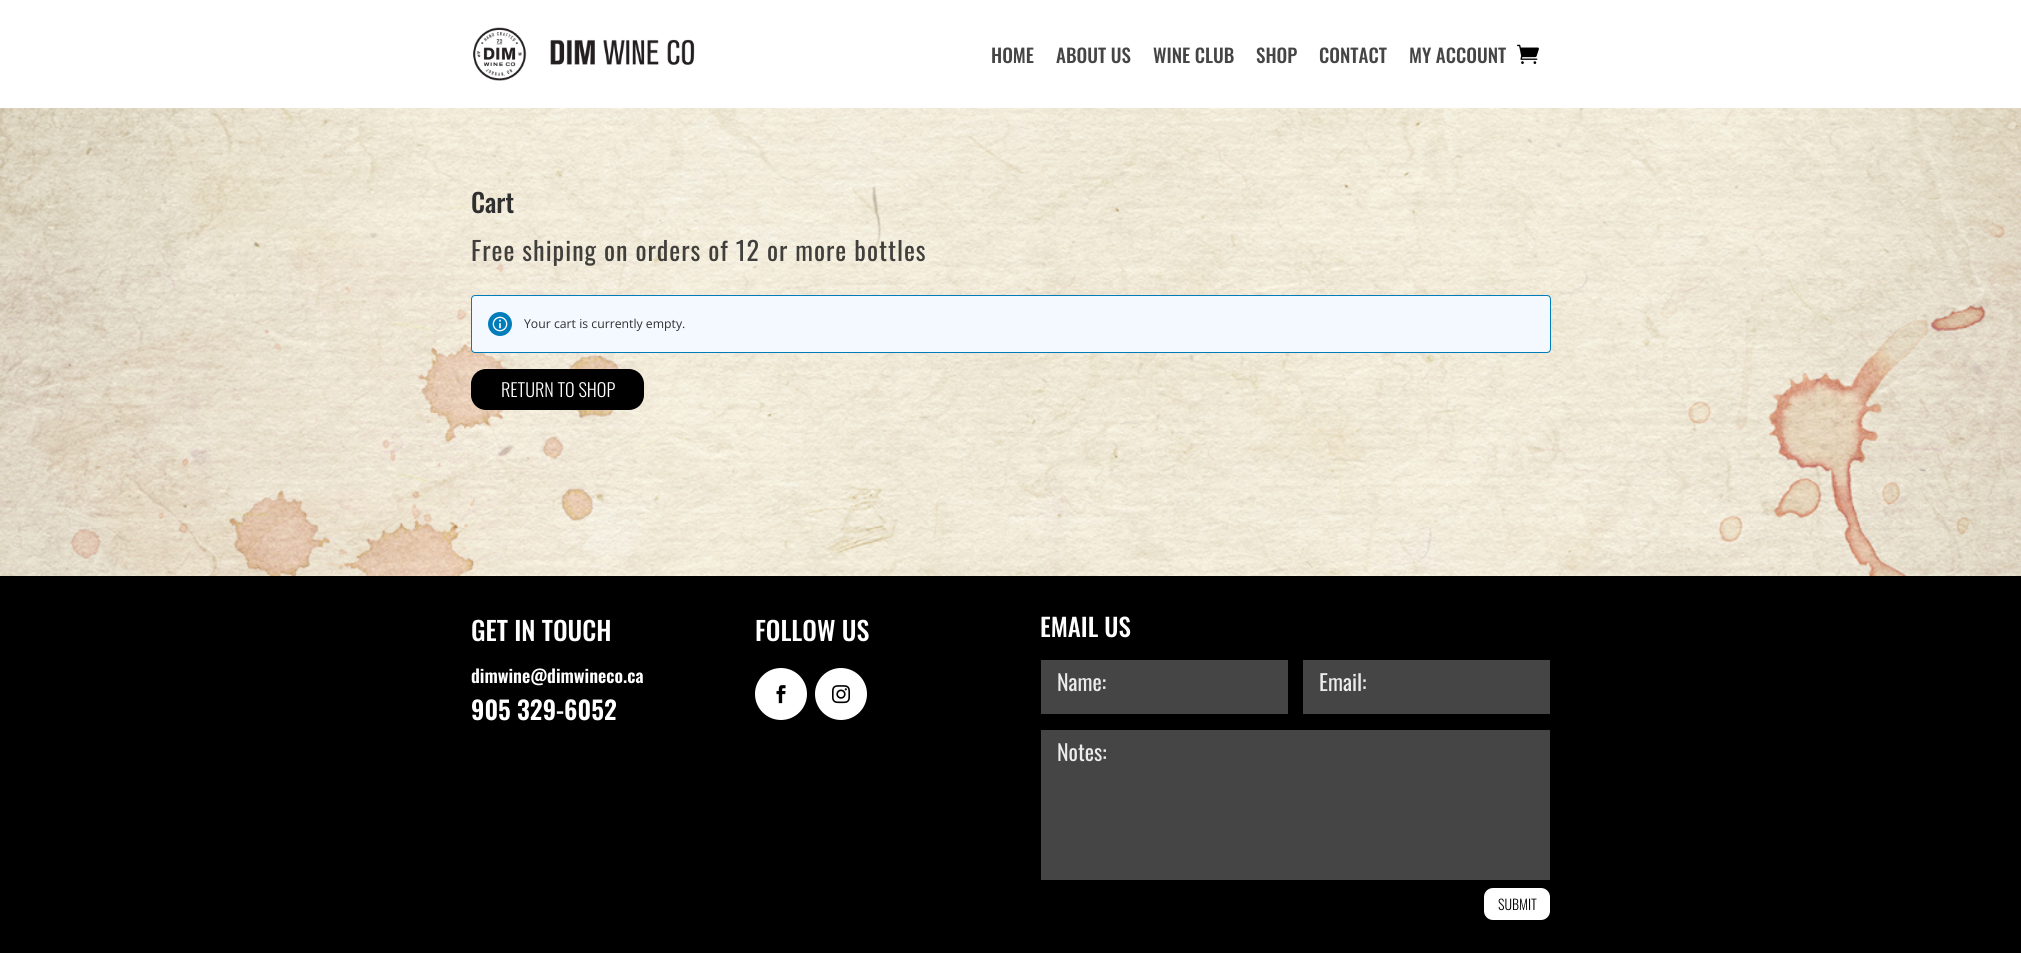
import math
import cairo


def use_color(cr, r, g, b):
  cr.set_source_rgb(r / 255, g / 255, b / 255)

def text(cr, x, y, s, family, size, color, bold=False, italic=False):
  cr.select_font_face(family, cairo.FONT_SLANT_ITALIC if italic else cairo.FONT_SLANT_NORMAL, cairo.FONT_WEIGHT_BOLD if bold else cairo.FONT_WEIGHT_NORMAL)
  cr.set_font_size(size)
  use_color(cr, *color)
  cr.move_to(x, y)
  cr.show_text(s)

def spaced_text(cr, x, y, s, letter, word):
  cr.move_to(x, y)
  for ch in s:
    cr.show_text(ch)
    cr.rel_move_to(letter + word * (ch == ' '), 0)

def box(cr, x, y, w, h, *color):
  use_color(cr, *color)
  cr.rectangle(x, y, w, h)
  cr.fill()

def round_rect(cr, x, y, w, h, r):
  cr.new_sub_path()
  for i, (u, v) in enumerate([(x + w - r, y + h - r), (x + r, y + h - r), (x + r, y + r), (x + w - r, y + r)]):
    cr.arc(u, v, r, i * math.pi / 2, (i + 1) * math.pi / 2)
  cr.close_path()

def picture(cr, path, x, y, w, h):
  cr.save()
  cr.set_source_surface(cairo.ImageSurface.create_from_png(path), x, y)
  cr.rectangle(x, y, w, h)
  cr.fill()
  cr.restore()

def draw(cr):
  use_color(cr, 255, 255, 255)
  cr.paint()
  picture(cr, "img_01.png", 473, 27, 222, 54)
  picture(cr, "img_02.png", 1517, 44, 22, 20)
  picture(cr, "img_03.png", 0, 108, 2021, 468)
  use_color(cr, 244, 248, 255)
  round_rect(cr, 471.5, 295.5, 1079, 57, 3.5)
  cr.fill_preserve()
  use_color(cr, 0, 124, 186)
  cr.set_line_width(1)
  cr.stroke()
  cr.arc(500, 324, 12, 0, 2 * math.pi)
  cr.fill()
  picture(cr, "img_04.png", 492, 316, 16, 16)
  use_color(cr, 0, 0, 0)
  round_rect(cr, 471, 369, 173, 41, 15)
  cr.fill()
  box(cr, 0, 576, 2021, 377, 0, 0, 0)
  use_color(cr, 255, 255, 255)
  cr.arc(781, 694, 26, 0, 2 * math.pi)
  cr.fill()
  picture(cr, "img_05.png", 776, 685, 10, 19)
  cr.arc(841, 694, 26, 0, 2 * math.pi)
  cr.fill()
  picture(cr, "img_06.png", 832, 685, 18, 19)
  box(cr, 1041, 660, 247, 54, 69, 69, 69)
  box(cr, 1303, 660, 247, 54, 69, 69, 69)
  box(cr, 1041, 730, 509, 150, 69, 69, 69)
  use_color(cr, 255, 255, 255)
  round_rect(cr, 1484, 888, 66, 32, 9)
  cr.fill()
  text(cr, 991, 63, "HOME", "Oswald Medium", 19, (69, 69, 69))
  text(cr, 1056, 63, "ABOUT US", "Oswald Medium", 19, (69, 69, 69))
  text(cr, 1153, 63, "WINE CLUB", "Oswald Medium", 19, (69, 69, 69))
  text(cr, 1256, 63, "SHOP", "Oswald Medium", 19, (69, 69, 69))
  text(cr, 1319, 63, "CONTACT", "Oswald Medium", 19, (69, 69, 69))
  text(cr, 1409, 63, "MY ACCOUNT", "Oswald Medium", 19, (69, 69, 69))
  text(cr, 471, 213, "Cart", "Oswald Medium", 26, (47, 47, 47))
  cr.select_font_face("Oswald")
  use_color(cr, 65, 63, 59)
  spaced_text(cr, 471, 261, "Free shiping on orders of 12 or more bottles", 1, 0)
  text(cr, 524, 328, "Your cart is currently empty.", "Open Sans", 12.25, (47, 47, 47))
  text(cr, 501, 397, "RETURN TO SHOP", "Oswald Light", 18.25, (255, 255, 255))
  text(cr, 471, 641, "GET IN TOUCH", "Oswald Medium", 26, (255, 255, 255))
  text(cr, 471, 683, "dimwine@dimwineco.ca", "Oswald SemiBold", 18, (255, 255, 255))
  text(cr, 471, 720, "905 329-6052", "Oswald SemiBold", 25.25, (255, 255, 255))
  text(cr, 755, 641, "FOLLOW US", "Oswald Medium", 26, (255, 255, 255))
  text(cr, 1040, 637, "EMAIL US", "Oswald Medium", 25, (255, 255, 255))
  text(cr, 1057, 691, "Name:", "Oswald", 22, (236, 236, 236))
  text(cr, 1319, 691, "Email:", "Oswald", 22, (236, 236, 236))
  text(cr, 1057, 761, "Notes:", "Oswald", 22, (236, 236, 236))
  text(cr, 1498, 910, "SUBMIT", "Oswald Light", 14, (0, 0, 0))


surface = cairo.ImageSurface(cairo.FORMAT_RGB24, 2021, 953)
cr = cairo.Context(surface)
options = cairo.FontOptions()
options.set_hint_metrics(cairo.HINT_METRICS_OFF)
options.set_hint_style(cairo.HINT_STYLE_NONE)
cr.set_font_options(options)
cr.set_miter_limit(4)
draw(cr)
surface.write_to_png("out.png")
